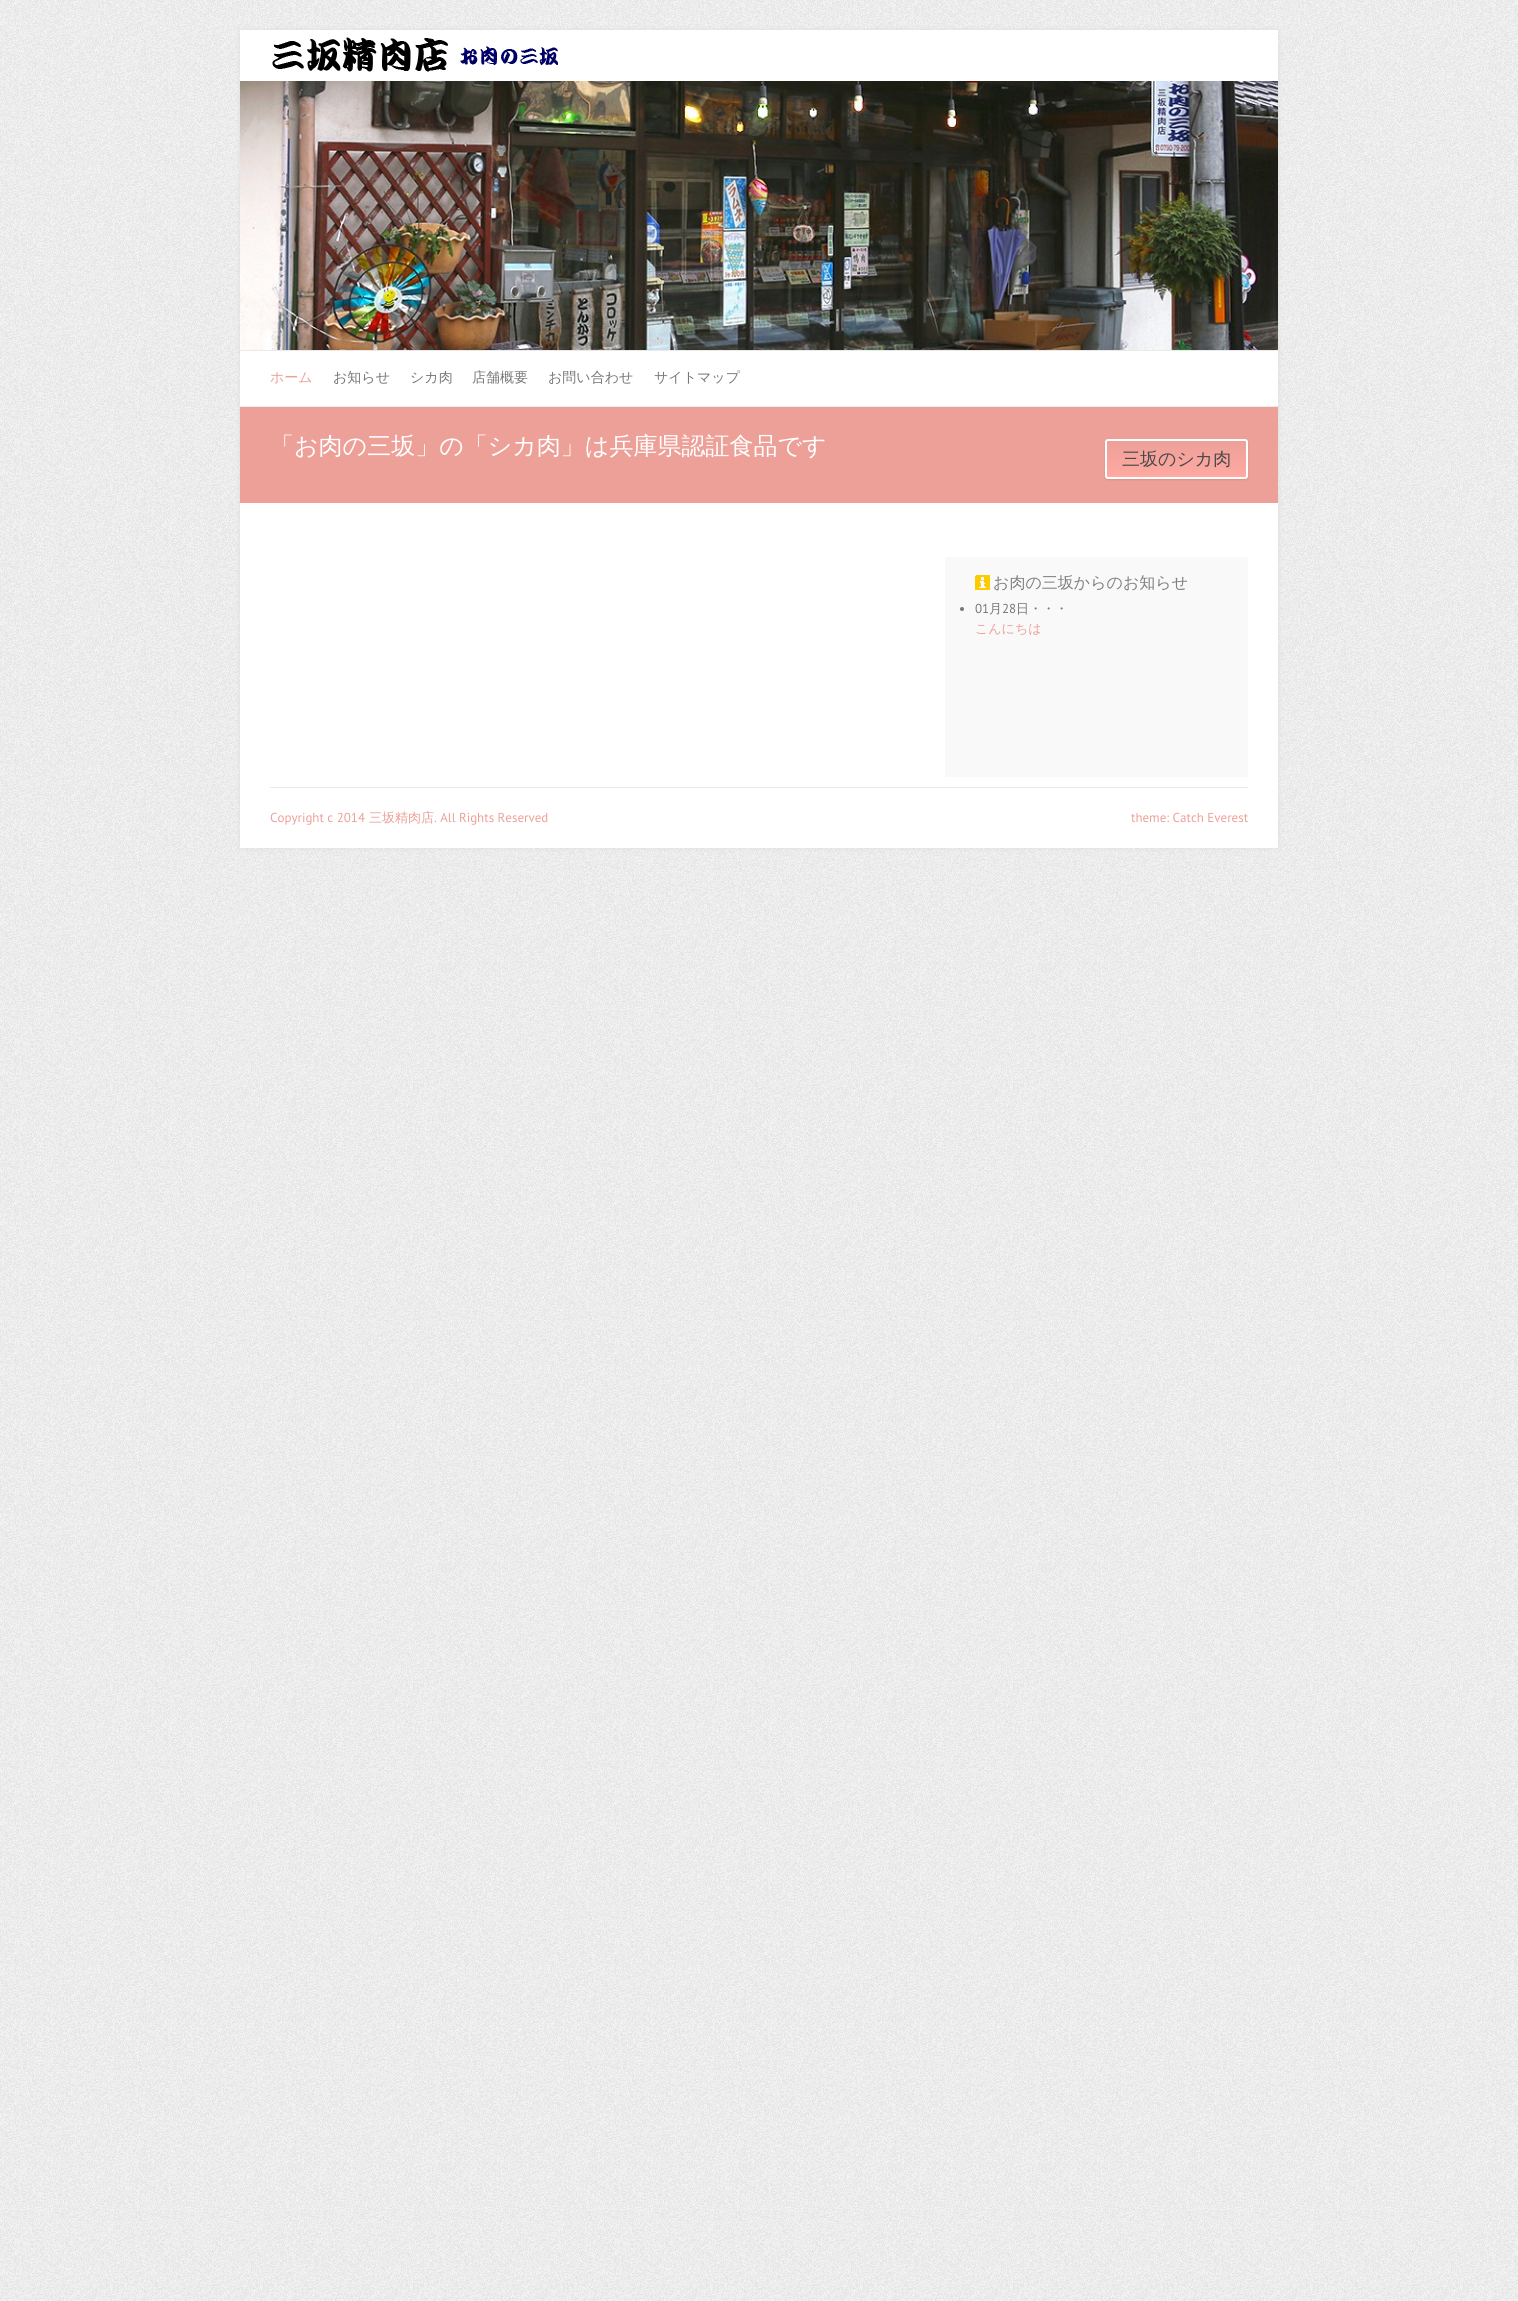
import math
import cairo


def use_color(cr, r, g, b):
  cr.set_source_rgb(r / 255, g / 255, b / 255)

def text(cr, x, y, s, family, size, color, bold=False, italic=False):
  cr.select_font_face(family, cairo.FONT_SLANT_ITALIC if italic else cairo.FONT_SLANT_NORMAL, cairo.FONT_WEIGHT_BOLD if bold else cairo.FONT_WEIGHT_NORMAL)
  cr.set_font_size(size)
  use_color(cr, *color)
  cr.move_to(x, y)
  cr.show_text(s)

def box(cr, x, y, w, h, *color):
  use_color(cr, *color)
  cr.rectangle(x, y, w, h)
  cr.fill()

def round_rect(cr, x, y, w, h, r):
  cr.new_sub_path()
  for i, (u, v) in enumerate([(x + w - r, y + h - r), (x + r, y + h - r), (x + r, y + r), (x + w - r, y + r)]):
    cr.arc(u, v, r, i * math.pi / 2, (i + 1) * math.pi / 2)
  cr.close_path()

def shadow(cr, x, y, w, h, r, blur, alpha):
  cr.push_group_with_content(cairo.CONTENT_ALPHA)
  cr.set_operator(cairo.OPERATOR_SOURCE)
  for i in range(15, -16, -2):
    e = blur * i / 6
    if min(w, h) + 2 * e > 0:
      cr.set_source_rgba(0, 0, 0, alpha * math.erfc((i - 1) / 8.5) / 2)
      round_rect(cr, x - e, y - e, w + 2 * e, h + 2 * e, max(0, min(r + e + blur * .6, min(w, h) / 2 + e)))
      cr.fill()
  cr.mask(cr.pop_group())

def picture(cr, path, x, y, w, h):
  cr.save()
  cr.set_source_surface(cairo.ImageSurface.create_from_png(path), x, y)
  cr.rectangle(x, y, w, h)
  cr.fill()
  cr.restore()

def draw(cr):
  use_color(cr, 255, 255, 255)
  cr.paint()
  picture(cr, "img_01.png", 0, 0, 1518, 2301)
  use_color(cr, 221, 221, 221)
  shadow(cr, 240, 30, 1038, 818, 0, 2.5, 1)
  box(cr, 240, 30, 1038, 818, 255, 255, 255)
  picture(cr, "img_02.png", 272, 37, 286, 35)
  picture(cr, "img_03.png", 240, 81, 1038, 269)
  box(cr, 240, 350, 1038, 1, 234, 234, 234)
  box(cr, 240, 406, 1038, 1, 234, 234, 234)
  box(cr, 240, 407, 1038, 96, 237, 160, 152)
  use_color(cr, 0, 0, 0)
  shadow(cr, 1105, 440, 143, 40, 3, 1, 0.1)
  cr.save()
  round_rect(cr, 1105, 439, 143, 40, 3)
  cr.clip()
  gradient = cairo.LinearGradient(1177, 441, 1177, 477)
  gradient.add_color_stop_rgba(0, 0.929, 0.627, 0.596, 1)
  gradient.add_color_stop_rgba(1, 1, 0.663, 0.635, 1)
  cr.set_source(gradient)
  cr.rectangle(1105, 441, 143, 36)
  cr.fill()
  cr.restore()
  round_rect(cr, 1106, 440, 141, 38, 2)
  use_color(cr, 255, 255, 255)
  cr.stroke()
  box(cr, 945, 557, 303, 220, 249, 249, 249)
  picture(cr, "img_04.png", 975, 575, 15, 15)
  use_color(cr, 119, 119, 119)
  cr.arc(962, 609, 2, 0, 2 * math.pi)
  cr.fill()
  box(cr, 270, 787, 978, 1, 234, 234, 234)
  text(cr, 270, 382, "ホーム", "WenQuanYi Zen Hei Medium", 14, (237, 160, 152))
  text(cr, 333, 382, "お知らせ", "WenQuanYi Zen Hei Medium", 14, (119, 119, 119))
  text(cr, 410, 382, "シカ肉", "WenQuanYi Zen Hei Medium", 14, (119, 119, 119))
  text(cr, 472, 382, "店舗概要", "WenQuanYi Zen Hei Medium", 14, (119, 119, 119))
  text(cr, 548, 382, "お問い合わせ", "WenQuanYi Zen Hei Medium", 14, (119, 119, 119))
  text(cr, 654, 382, "サイトマップ", "WenQuanYi Zen Hei Medium", 14, (119, 119, 119))
  text(cr, 270, 454, "「お肉の三坂」の「シカ肉」は兵庫県認証食品です", "WenQuanYi Zen Hei Medium", 24, (255, 255, 255))
  text(cr, 1122, 465, "三坂のシカ肉", "WenQuanYi Zen Hei Medium", 18, (73, 73, 73))
  text(cr, 993, 588, "お肉の三坂からのお知らせ", "WenQuanYi Zen Hei Medium", 16, (128, 128, 128))
  text(cr, 975, 613, "01", "PT Sans", 13, (119, 119, 119))
  text(cr, 989, 613, "月", "WenQuanYi Zen Hei Medium", 13, (119, 119, 119))
  text(cr, 1002, 613, "28", "PT Sans", 13, (119, 119, 119))
  text(cr, 1016, 613, "日・・・", "WenQuanYi Zen Hei Medium", 13, (119, 119, 119))
  text(cr, 975, 633, "こんにちは", "WenQuanYi Zen Hei Medium", 13, (237, 160, 152))
  text(cr, 270, 822, "Copyright c 2014", "PT Sans", 13, (237, 160, 152))
  text(cr, 369, 822, "三坂精肉店", "WenQuanYi Zen Hei Medium", 13, (237, 160, 152))
  text(cr, 434, 822, ". All Rights Reserved", "PT Sans", 13, (237, 160, 152))
  text(cr, 1131, 822, "theme: Catch Everest", "PT Sans", 13, (237, 160, 152))


surface = cairo.ImageSurface(cairo.FORMAT_RGB24, 1518, 2301)
cr = cairo.Context(surface)
options = cairo.FontOptions()
options.set_hint_metrics(cairo.HINT_METRICS_OFF)
options.set_hint_style(cairo.HINT_STYLE_NONE)
cr.set_font_options(options)
cr.set_miter_limit(4)
draw(cr)
surface.write_to_png("out.png")
